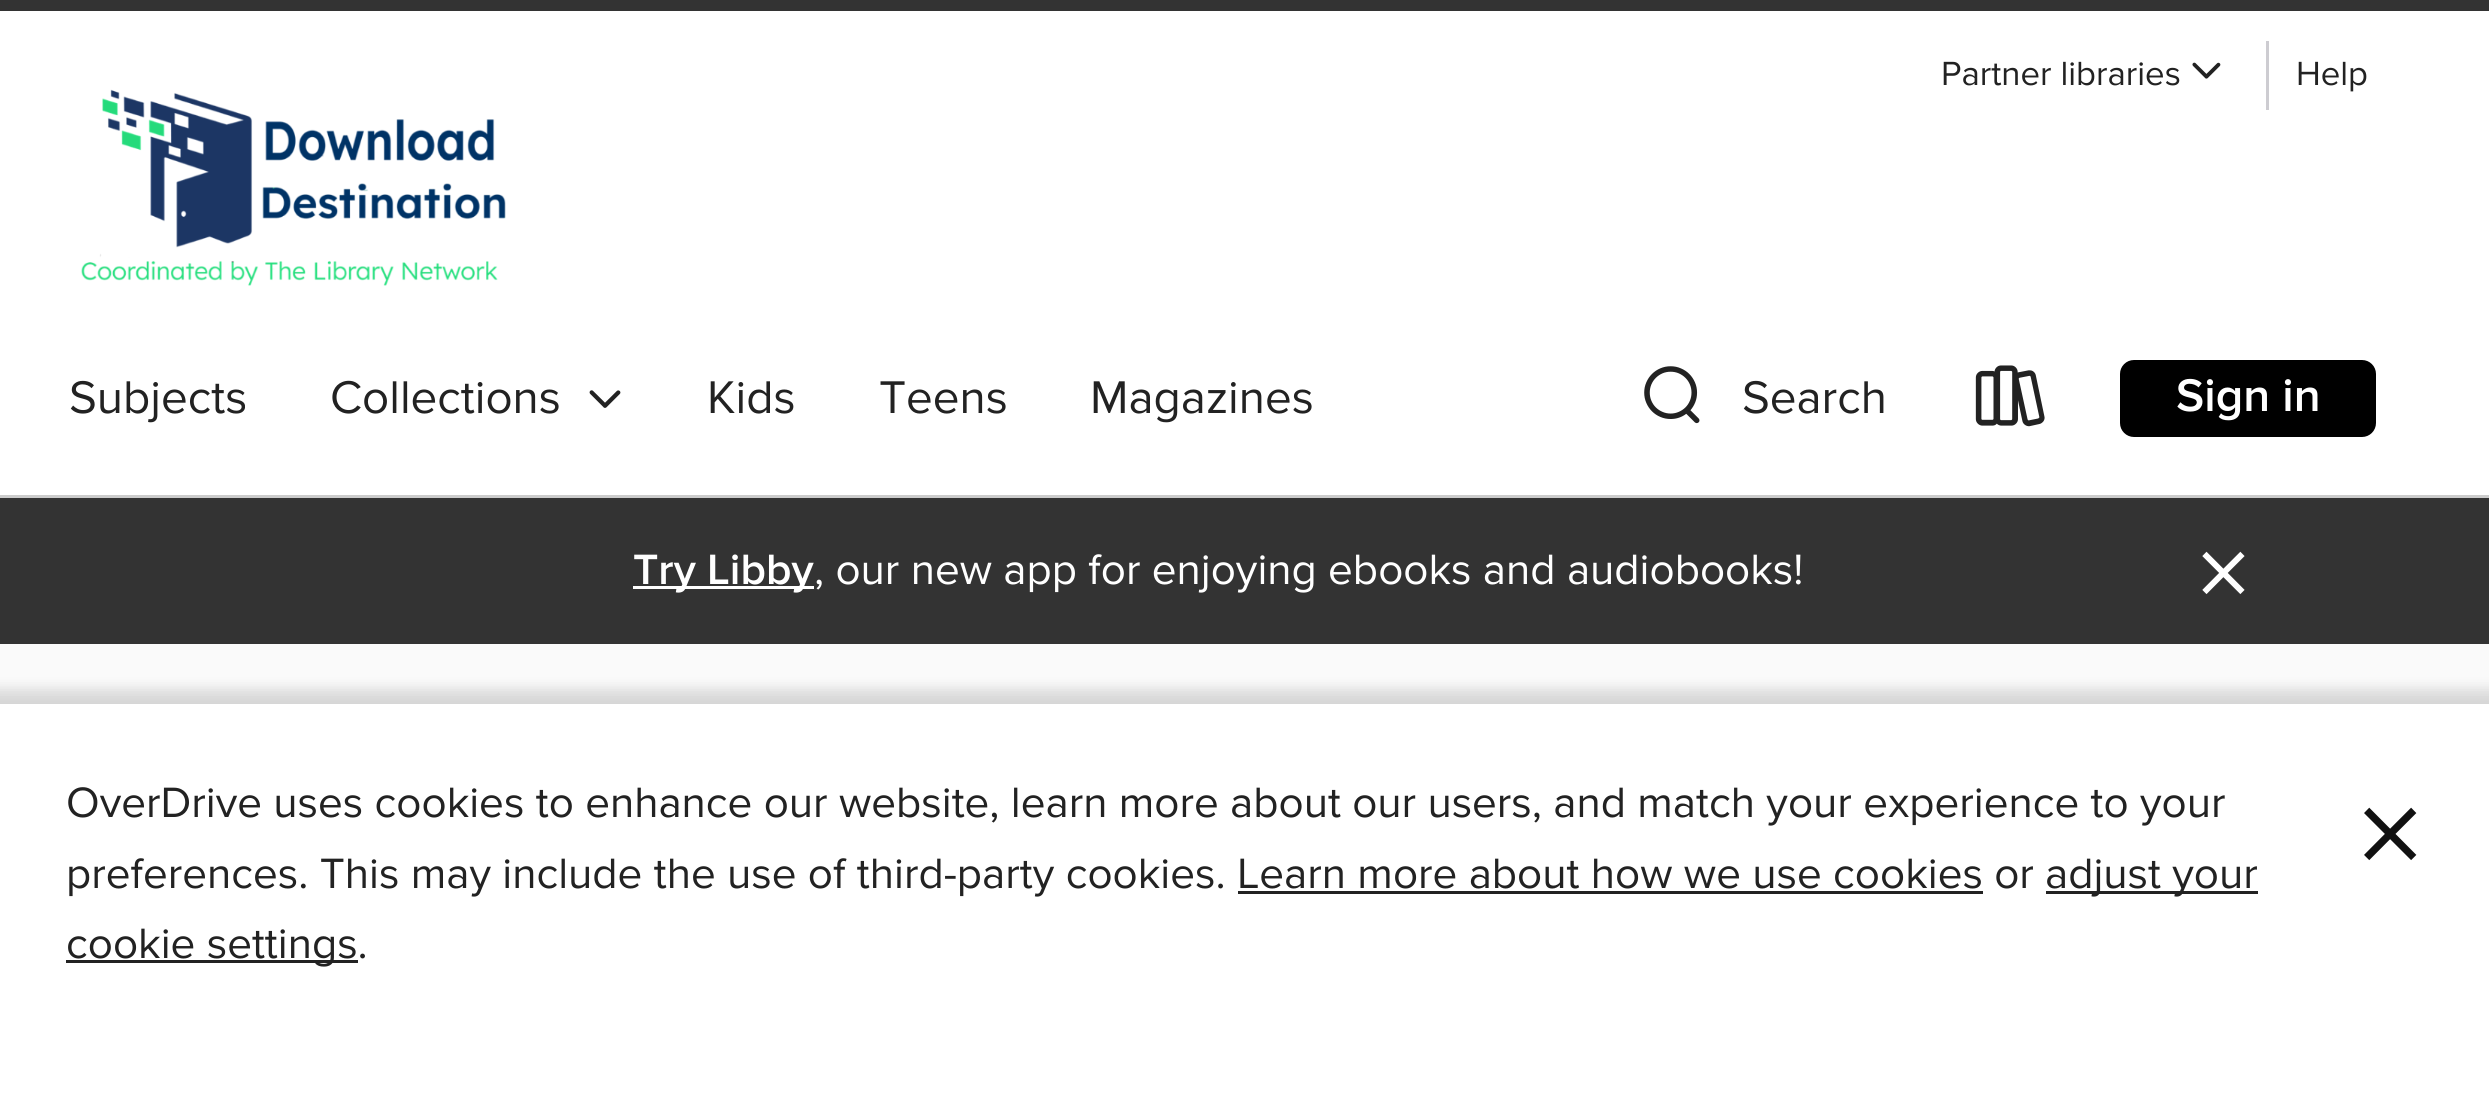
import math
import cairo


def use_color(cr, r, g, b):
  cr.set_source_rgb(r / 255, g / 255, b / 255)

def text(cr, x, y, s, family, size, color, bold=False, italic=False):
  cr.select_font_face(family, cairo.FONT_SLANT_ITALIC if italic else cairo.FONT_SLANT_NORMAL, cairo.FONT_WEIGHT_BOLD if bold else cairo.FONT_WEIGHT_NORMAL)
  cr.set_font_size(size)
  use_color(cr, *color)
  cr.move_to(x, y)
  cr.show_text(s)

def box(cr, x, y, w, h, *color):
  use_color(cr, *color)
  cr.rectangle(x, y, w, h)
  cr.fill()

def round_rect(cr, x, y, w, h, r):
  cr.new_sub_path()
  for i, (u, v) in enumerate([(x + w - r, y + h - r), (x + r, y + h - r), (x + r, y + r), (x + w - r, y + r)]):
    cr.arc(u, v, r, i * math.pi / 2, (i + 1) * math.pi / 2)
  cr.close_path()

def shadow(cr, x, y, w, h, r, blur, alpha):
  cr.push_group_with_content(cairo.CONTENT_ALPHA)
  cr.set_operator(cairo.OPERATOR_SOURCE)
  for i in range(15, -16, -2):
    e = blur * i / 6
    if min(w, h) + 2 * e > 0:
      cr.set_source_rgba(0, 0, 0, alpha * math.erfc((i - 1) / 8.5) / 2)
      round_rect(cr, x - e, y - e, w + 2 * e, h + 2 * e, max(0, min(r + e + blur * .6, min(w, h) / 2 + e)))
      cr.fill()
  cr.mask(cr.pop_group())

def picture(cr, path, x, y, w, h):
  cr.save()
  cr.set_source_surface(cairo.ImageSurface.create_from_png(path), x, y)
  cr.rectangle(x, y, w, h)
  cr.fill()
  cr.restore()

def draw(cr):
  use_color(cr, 250, 250, 250)
  cr.paint()
  box(cr, 0, 11, 2489, 484, 255, 255, 255)
  box(cr, 0, 0, 2489, 11, 51, 51, 51)
  box(cr, 0, 495, 2489, 3, 204, 204, 204)
  picture(cr, "img_01.png", 2192, 62, 29, 17)
  box(cr, 2266, 41, 3, 69, 205, 204, 209)
  picture(cr, "img_02.png", 81, 89, 425, 197)
  picture(cr, "img_03.png", 589, 390, 32, 18)
  picture(cr, "img_04.png", 1644, 366, 56, 58)
  picture(cr, "img_05.png", 1975, 365, 70, 62)
  use_color(cr, 0, 0, 0)
  round_rect(cr, 2120, 360, 256, 77, 14)
  cr.fill()
  box(cr, 0, 498, 2489, 146, 51, 51, 51)
  box(cr, 633, 586, 181, 3, 255, 255, 255)
  use_color(cr, 0, 0, 0)
  shadow(cr, -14, 690, 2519, 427, 0, 7, 0.15)
  box(cr, 0, 704, 2489, 398, 255, 255, 255)
  box(cr, 1238, 891, 745, 3, 34, 34, 34)
  box(cr, 2046, 891, 212, 3, 34, 34, 34)
  box(cr, 66, 960, 292, 3, 34, 34, 34)
  text(cr, 1941, 85, "Partner libraries", "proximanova", 34.75, (34, 34, 34))
  text(cr, 2296, 85, "Help", "proximanova", 34.75, (34, 34, 34))
  text(cr, 69, 413, "Subjects", "proximanova", 47.5, (34, 34, 34))
  text(cr, 330, 413, "Collections", "proximanova", 47.5, (34, 34, 34))
  text(cr, 707, 413, "Kids", "proximanova", 47.5, (34, 34, 34))
  text(cr, 879, 413, "Teens", "proximanova", 47.5, (34, 34, 34))
  text(cr, 1090, 413, "Magazines", "proximanova", 47.5, (34, 34, 34))
  text(cr, 1742, 413, "Search", "proximanova", 47.5, (34, 34, 34))
  text(cr, 2176, 411, "Sign in", "Proxima Nova SemiBold", 47.5, (255, 255, 255))
  text(cr, 633, 584, "Try Libby", "Proxima Nova SemiBold", 44, (255, 255, 255))
  text(cr, 814, 584, ", our new app for enjoying ebooks and audiobooks!", "proximanova", 44, (255, 255, 255))
  text(cr, 2195, 611, "×", "proximanova", 114, (255, 255, 255))
  text(cr, 66, 817, "OverDrive uses cookies to enhance our website, learn more about our users, and match your experience to your", "proximanova", 44, (34, 34, 34))
  text(cr, 66, 888, "preferences. This may include the use of third-party cookies. Learn more about how we use cookies or", "proximanova", 44, (34, 34, 34))
  text(cr, 2045, 888, "adjust your", "proximanova", 44, (34, 34, 34))
  text(cr, 66, 958, "cookie settings.", "proximanova", 44, (34, 34, 34))
  text(cr, 2355, 881, "×", "proximanova", 141, (17, 17, 17))


surface = cairo.ImageSurface(cairo.FORMAT_RGB24, 2489, 1102)
cr = cairo.Context(surface)
options = cairo.FontOptions()
options.set_hint_metrics(cairo.HINT_METRICS_OFF)
options.set_hint_style(cairo.HINT_STYLE_NONE)
cr.set_font_options(options)
cr.set_miter_limit(4)
draw(cr)
surface.write_to_png("out.png")
